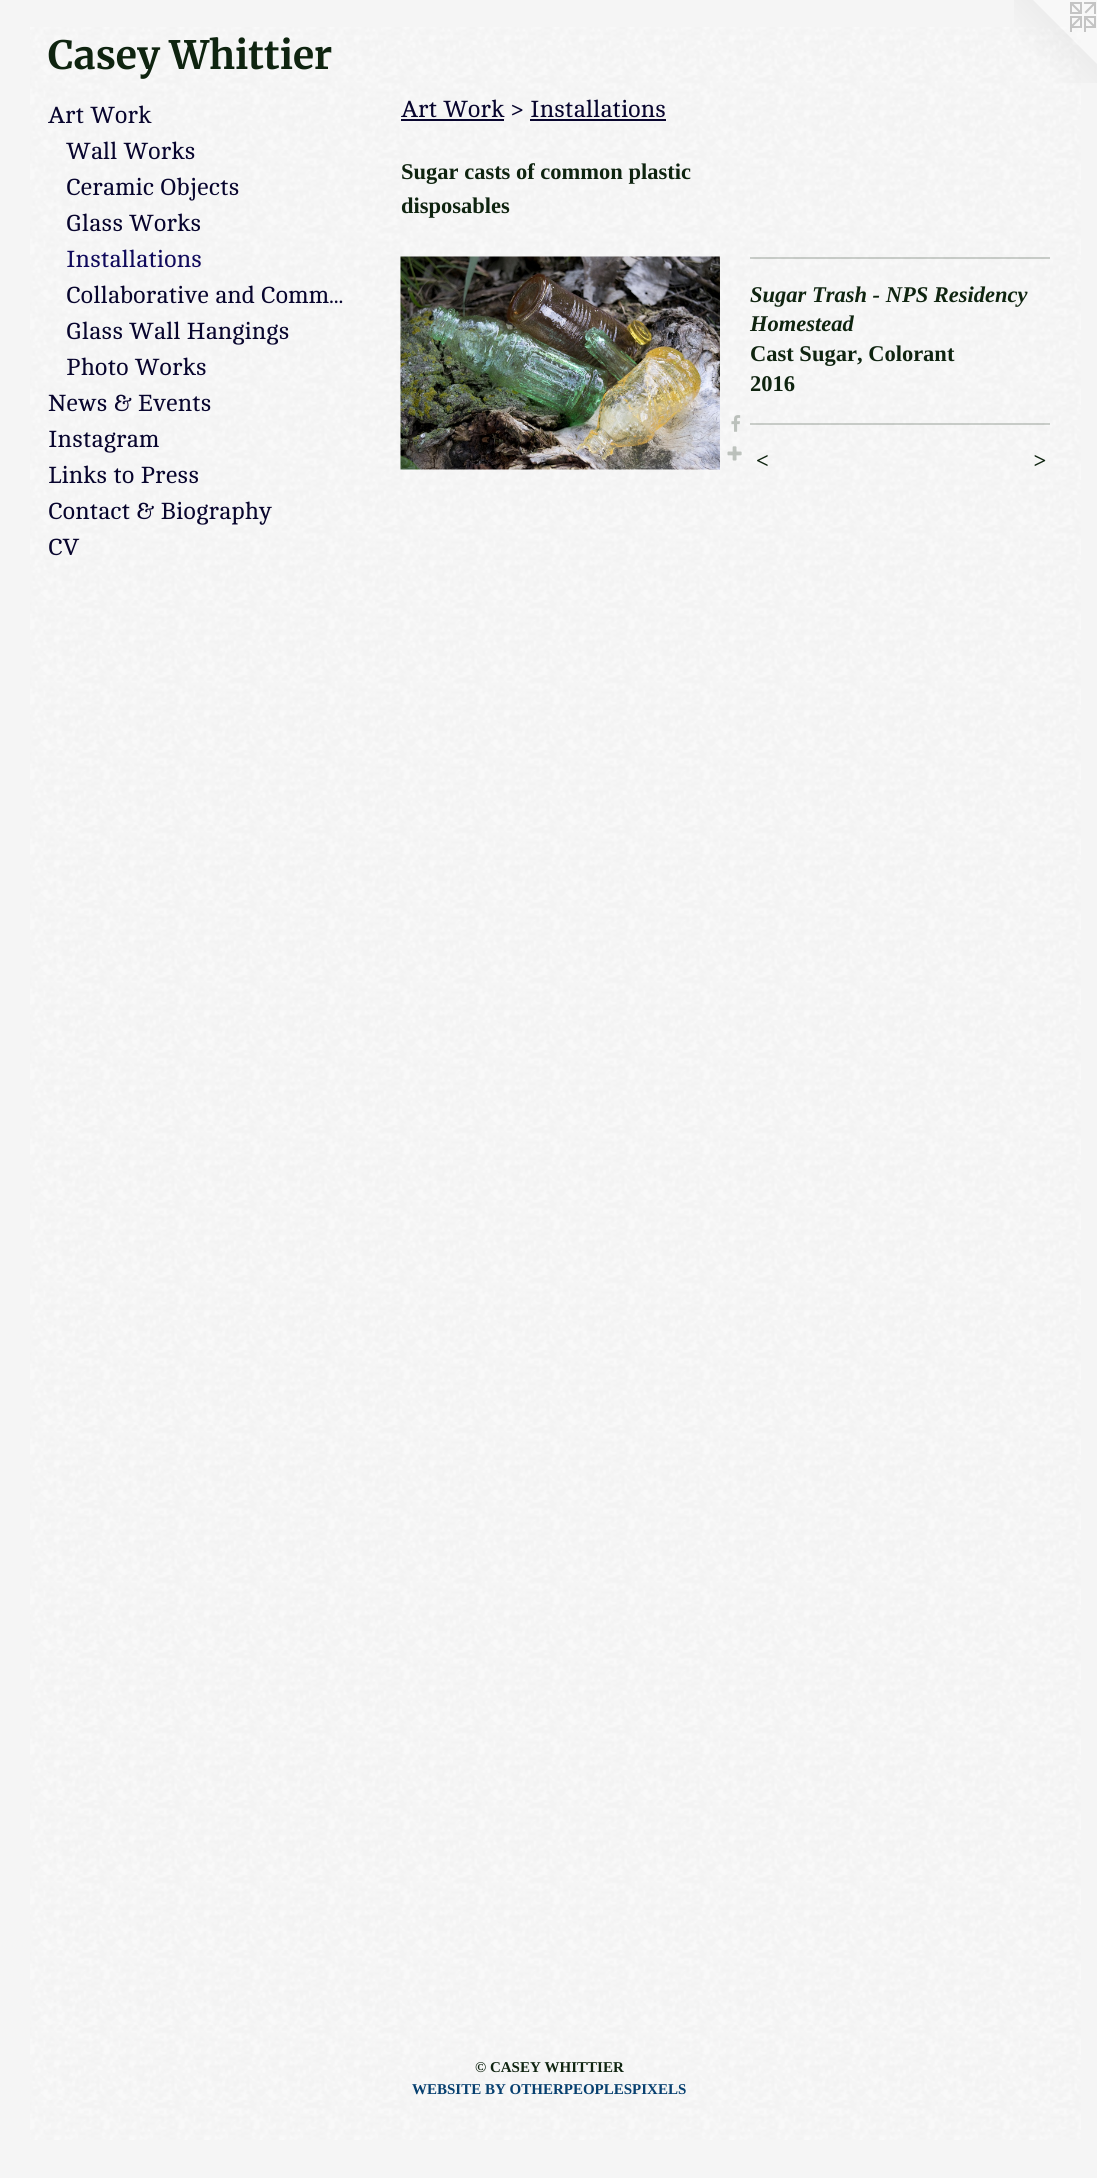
import math
import cairo


def use_color(cr, r, g, b):
  cr.set_source_rgb(r / 255, g / 255, b / 255)

def text(cr, x, y, s, family, size, color, bold=False, italic=False):
  cr.select_font_face(family, cairo.FONT_SLANT_ITALIC if italic else cairo.FONT_SLANT_NORMAL, cairo.FONT_WEIGHT_BOLD if bold else cairo.FONT_WEIGHT_NORMAL)
  cr.set_font_size(size)
  use_color(cr, *color)
  cr.move_to(x, y)
  cr.show_text(s)

def spaced_text(cr, x, y, s, letter, word):
  cr.move_to(x, y)
  for ch in s:
    cr.show_text(ch)
    cr.rel_move_to(letter + word * (ch == ' '), 0)

def box(cr, x, y, w, h, *color):
  use_color(cr, *color)
  cr.rectangle(x, y, w, h)
  cr.fill()

def picture(cr, path, x, y, w, h):
  cr.save()
  cr.set_source_surface(cairo.ImageSurface.create_from_png(path), x, y)
  cr.rectangle(x, y, w, h)
  cr.fill()
  cr.restore()

def draw(cr):
  use_color(cr, 245, 245, 245)
  cr.paint()
  picture(cr, "img_01.png", 30, 27, 1051, 2113)
  picture(cr, "img_02.png", 1014, 0, 83, 83)
  box(cr, 401, 119, 103, 2, 8, 5, 46)
  box(cr, 530, 119, 136, 2, 8, 5, 46)
  picture(cr, "img_03.png", 400, 256, 320, 214)
  picture(cr, "img_04.png", 731, 415, 10, 17)
  picture(cr, "img_05.png", 727, 446, 15, 15)
  cr.set_source_rgba(0.059, 0.141, 0.063, 0.2)
  cr.rectangle(750, 257, 300, 2)
  cr.fill()
  cr.rectangle(750, 423, 300, 2)
  cr.fill()
  text(cr, 48, 69, "Casey Whittier", "Merriweather Light", 39, (15, 36, 16))
  text(cr, 48, 123, "Art Work", "Cambo", 24, (8, 5, 46))
  text(cr, 66, 159, "Wall Works", "Cambo", 24, (8, 5, 46))
  text(cr, 66, 195, "Ceramic Objects", "Cambo", 24, (8, 5, 46))
  text(cr, 66, 231, "Glass Works", "Cambo", 24, (8, 5, 46))
  text(cr, 66, 267, "Installations", "Cambo", 24, (16, 10, 92))
  text(cr, 66, 303, "Collaborative and Comm...", "Cambo", 24, (8, 5, 46))
  text(cr, 66, 339, "Glass Wall Hangings", "Cambo", 24, (8, 5, 46))
  text(cr, 66, 375, "Photo Works", "Cambo", 24, (8, 5, 46))
  text(cr, 48, 411, "News & Events", "Cambo", 24, (8, 5, 46))
  text(cr, 48, 447, "Instagram", "Cambo", 24, (8, 5, 46))
  text(cr, 48, 483, "Links to Press", "Cambo", 24, (8, 5, 46))
  text(cr, 48, 519, "Contact & Biography", "Cambo", 24, (8, 5, 46))
  text(cr, 48, 555, "CV", "Cambo", 24, (8, 5, 46))
  text(cr, 401, 117, "Art Work > Installations", "Cambo", 24, (8, 5, 46))
  text(cr, 401, 179, "Sugar casts of common plastic", "Liberation Serif", 22.5, (15, 36, 16), bold=True)
  text(cr, 401, 213, "disposables", "Liberation Serif", 22.5, (15, 36, 16), bold=True)
  text(cr, 750, 302, "Sugar Trash - NPS Residency", "Liberation Serif", 22.5, (15, 36, 16), bold=True, italic=True)
  text(cr, 750, 331, "Homestead", "Liberation Serif", 22.5, (15, 36, 16), bold=True, italic=True)
  text(cr, 750, 361, "Cast Sugar, Colorant", "Liberation Serif", 22.5, (15, 36, 16), bold=True)
  text(cr, 750, 391, "2016", "Liberation Serif", 22.5, (15, 36, 16), bold=True)
  cr.select_font_face("Liberation Serif", cairo.FONT_SLANT_ITALIC, cairo.FONT_WEIGHT_BOLD)
  spaced_text(cr, 756, 468, "<", 2, 0)
  spaced_text(cr, 1033, 468, ">", 2, 0)
  text(cr, 475, 2072, "© CASEY WHITTIER", "Liberation Serif", 15, (15, 36, 16), bold=True)
  text(cr, 412, 2094, "WEBSITE BY OTHERPEOPLESPIXELS", "Liberation Serif", 15, (6, 63, 111), bold=True)


surface = cairo.ImageSurface(cairo.FORMAT_RGB24, 1097, 2178)
cr = cairo.Context(surface)
options = cairo.FontOptions()
options.set_hint_metrics(cairo.HINT_METRICS_OFF)
options.set_hint_style(cairo.HINT_STYLE_NONE)
cr.set_font_options(options)
cr.set_miter_limit(4)
draw(cr)
surface.write_to_png("out.png")
